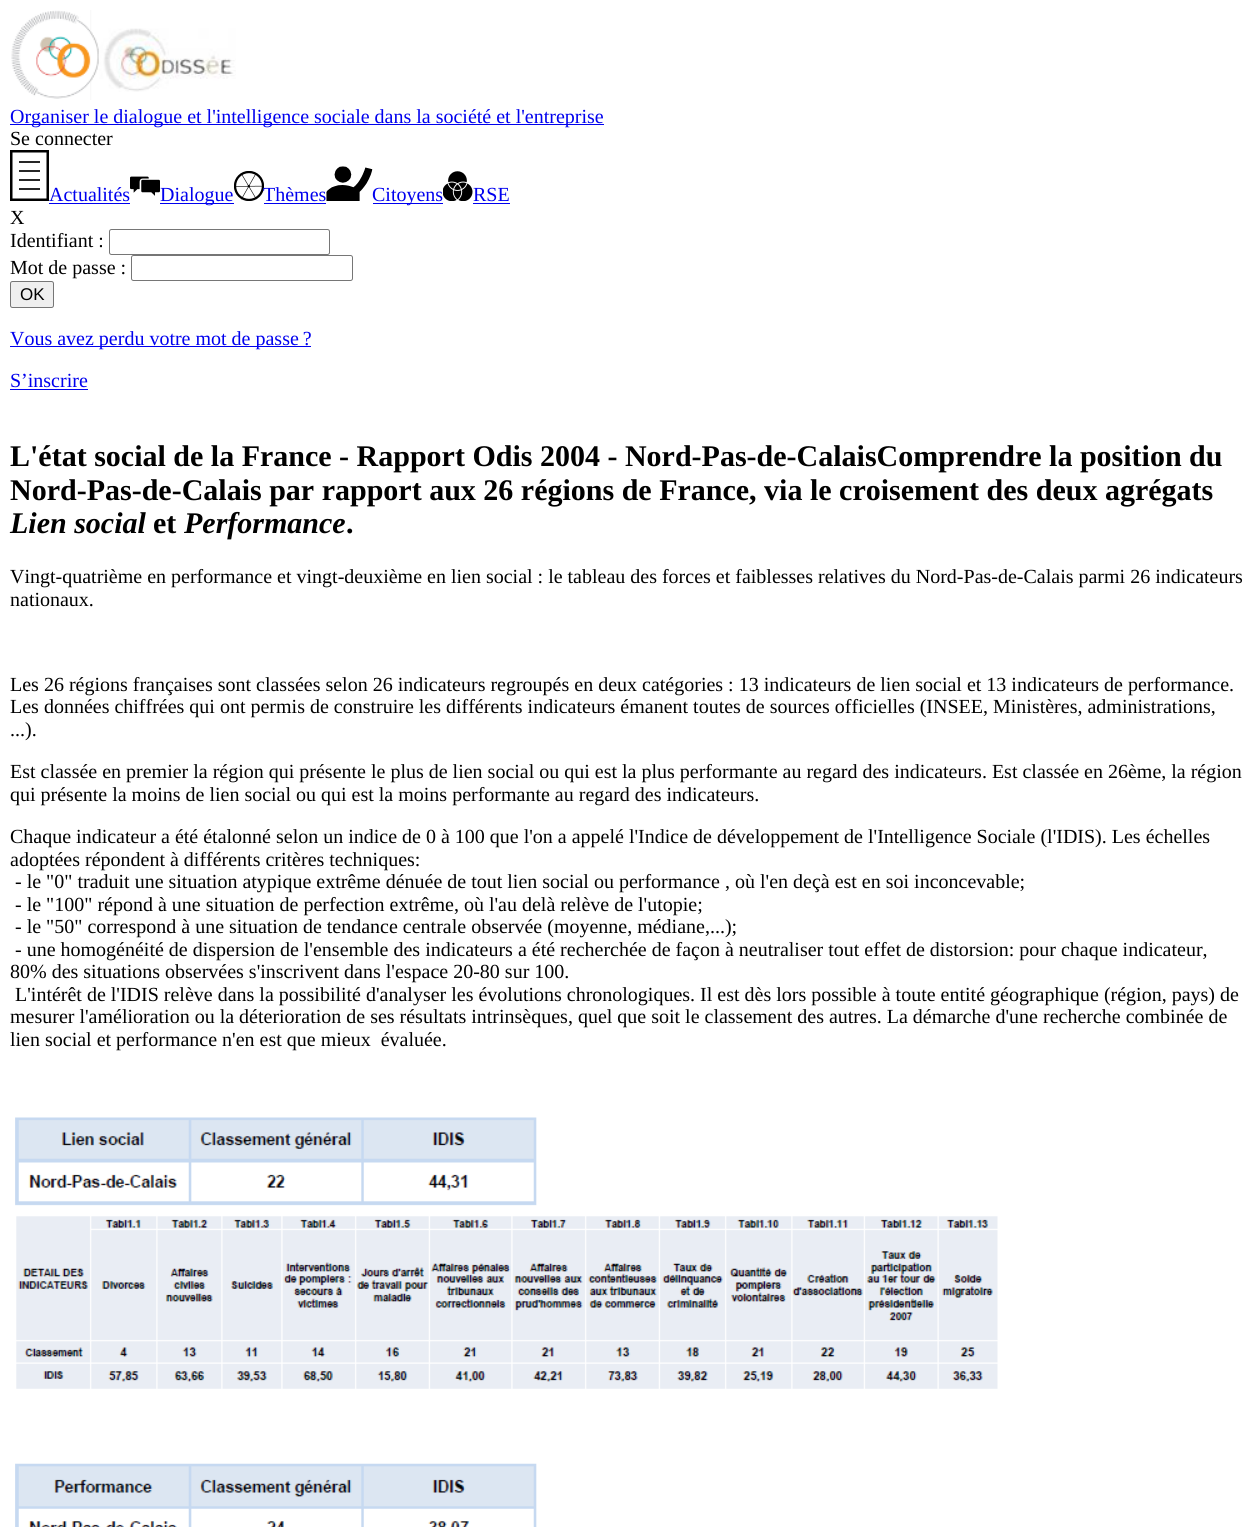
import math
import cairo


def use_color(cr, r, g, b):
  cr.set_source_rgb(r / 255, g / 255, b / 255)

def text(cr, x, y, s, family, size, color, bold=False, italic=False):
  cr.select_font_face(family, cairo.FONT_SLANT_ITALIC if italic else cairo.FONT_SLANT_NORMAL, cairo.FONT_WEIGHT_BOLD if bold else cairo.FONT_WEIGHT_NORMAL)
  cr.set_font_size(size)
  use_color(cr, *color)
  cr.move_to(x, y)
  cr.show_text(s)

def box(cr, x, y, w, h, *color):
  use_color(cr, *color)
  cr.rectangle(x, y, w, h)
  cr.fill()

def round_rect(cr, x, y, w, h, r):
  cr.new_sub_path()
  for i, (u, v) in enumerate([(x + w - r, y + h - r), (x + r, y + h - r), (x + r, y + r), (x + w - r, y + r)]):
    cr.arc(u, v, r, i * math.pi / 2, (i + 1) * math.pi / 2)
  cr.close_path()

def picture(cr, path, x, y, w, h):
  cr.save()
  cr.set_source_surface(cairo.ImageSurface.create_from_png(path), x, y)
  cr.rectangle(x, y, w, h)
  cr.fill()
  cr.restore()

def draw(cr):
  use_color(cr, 255, 255, 255)
  cr.paint()
  picture(cr, "img_01.png", 11, 10, 88, 90)
  picture(cr, "img_02.png", 98, 28, 138, 64)
  box(cr, 10, 124, 594, 1, 0, 0, 238)
  cr.rectangle(11.25, 151.25, 36.5, 48.5)
  use_color(cr, 0, 0, 0)
  cr.set_line_width(2.5)
  cr.stroke()
  box(cr, 19, 170, 21, 2, 38, 38, 38)
  box(cr, 19, 179, 21, 2, 38, 38, 38)
  box(cr, 19, 188, 21, 2, 38, 38, 38)
  box(cr, 19, 161, 21, 2, 38, 38, 38)
  box(cr, 49, 203, 81, 1, 0, 0, 238)
  picture(cr, "img_03.png", 130, 176, 30, 20)
  box(cr, 160, 203, 74, 1, 0, 0, 238)
  picture(cr, "img_04.png", 234, 171, 30, 30)
  box(cr, 264, 203, 62, 1, 0, 0, 238)
  picture(cr, "img_05.png", 326, 166, 47, 35)
  box(cr, 373, 203, 70, 1, 0, 0, 238)
  picture(cr, "img_06.png", 443, 171, 30, 30)
  box(cr, 473, 203, 37, 1, 0, 0, 238)
  round_rect(cr, 109.5, 229.5, 220, 25, 2)
  use_color(cr, 118, 118, 118)
  cr.set_line_width(1)
  cr.stroke()
  round_rect(cr, 131.5, 255.5, 221, 25, 2)
  cr.stroke()
  use_color(cr, 239, 239, 239)
  round_rect(cr, 10.5, 281.5, 43, 26, 2)
  cr.fill_preserve()
  use_color(cr, 118, 118, 118)
  cr.stroke()
  box(cr, 10, 346, 301, 1, 0, 0, 238)
  box(cr, 10, 389, 78, 1, 0, 0, 238)
  picture(cr, "img_07.png", 15, 1117, 983, 272)
  picture(cr, "img_08.png", 15, 1463, 522, 64)
  text(cr, 10, 123, "Organiser le dialogue et l'intelligence sociale dans la société et l'entreprise", "Liberation Serif", 20, (0, 0, 238))
  text(cr, 10, 145, "Se connecter", "Liberation Serif", 20, (0, 0, 0))
  text(cr, 49, 201, "Actualités", "Liberation Serif", 20, (0, 0, 238))
  text(cr, 160, 201, "Dialogue", "Liberation Serif", 20, (0, 0, 238))
  text(cr, 263, 201, "Thèmes", "Liberation Serif", 20, (0, 0, 238))
  text(cr, 372, 201, "Citoyens", "Liberation Serif", 20, (0, 0, 238))
  text(cr, 473, 201, "RSE", "Liberation Serif", 20, (0, 0, 238))
  text(cr, 10, 224, "X", "Liberation Serif", 20, (0, 0, 0))
  text(cr, 10, 247, "Identifiant :", "Liberation Serif", 20, (0, 0, 0))
  text(cr, 10, 274, "Mot de passe :", "Liberation Serif", 20, (0, 0, 0))
  text(cr, 20, 300, "OK", "Liberation Sans", 17, (0, 0, 0))
  text(cr, 10, 345, "Vous avez perdu votre mot de passe ?", "Liberation Serif", 20, (0, 0, 238))
  text(cr, 10, 387, "S’inscrire", "Liberation Serif", 20, (0, 0, 238))
  text(cr, 10, 466, "L'état social de la France - Rapport Odis 2004 - Nord-Pas-de-CalaisComprendre la position du", "Liberation Serif", 30, (0, 0, 0), bold=True)
  text(cr, 10, 500, "Nord-Pas-de-Calais par rapport aux 26 régions de France, via le croisement des deux agrégats", "Liberation Serif", 30, (0, 0, 0), bold=True)
  text(cr, 10, 533, "Lien social", "Liberation Serif", 30, (0, 0, 0), bold=True, italic=True)
  text(cr, 153, 533, "et", "Liberation Serif", 30, (0, 0, 0), bold=True)
  text(cr, 184, 533, "Performance", "Liberation Serif", 30, (0, 0, 0), bold=True, italic=True)
  text(cr, 346, 533, ".", "Liberation Serif", 30, (0, 0, 0), bold=True)
  text(cr, 10, 583, "Vingt-quatrième en performance et vingt-deuxième en lien social : le tableau des forces et faiblesses relatives du Nord-Pas-de-Calais parmi 26 indicateurs", "Liberation Serif", 20, (0, 0, 0))
  text(cr, 10, 606, "nationaux.", "Liberation Serif", 20, (0, 0, 0))
  text(cr, 10, 691, "Les 26 régions françaises sont classées selon 26 indicateurs regroupés en deux catégories : 13 indicateurs de lien social et 13 indicateurs de performance.", "Liberation Serif", 20, (0, 0, 0))
  text(cr, 10, 713, "Les données chiffrées qui ont permis de construire les différents indicateurs émanent toutes de sources officielles (INSEE, Ministères, administrations,", "Liberation Serif", 20, (0, 0, 0))
  text(cr, 10, 736, "...).", "Liberation Serif", 20, (0, 0, 0))
  text(cr, 10, 778, "Est classée en premier la région qui présente le plus de lien social ou qui est la plus performante au regard des indicateurs. Est classée en 26ème, la région", "Liberation Serif", 20, (0, 0, 0))
  text(cr, 10, 801, "qui présente la moins de lien social ou qui est la moins performante au regard des indicateurs.", "Liberation Serif", 20, (0, 0, 0))
  text(cr, 10, 843, "Chaque indicateur a été étalonné selon un indice de 0 à 100 que l'on a appelé l'Indice de développement de l'Intelligence Sociale (l'IDIS). Les échelles", "Liberation Serif", 20, (0, 0, 0))
  text(cr, 10, 866, "adoptées répondent à différents critères techniques:", "Liberation Serif", 20, (0, 0, 0))
  text(cr, 15, 888, "- le \"0\" traduit une situation atypique extrême dénuée de tout lien social ou performance , où l'en deçà est en soi inconcevable;", "Liberation Serif", 20, (0, 0, 0))
  text(cr, 15, 911, "- le \"100\" répond à une situation de perfection extrême, où l'au delà relève de l'utopie;", "Liberation Serif", 20, (0, 0, 0))
  text(cr, 15, 933, "- le \"50\" correspond à une situation de tendance centrale observée (moyenne, médiane,...);", "Liberation Serif", 20, (0, 0, 0))
  text(cr, 15, 956, "- une homogénéité de dispersion de l'ensemble des indicateurs a été recherchée de façon à neutraliser tout effet de distorsion: pour chaque indicateur,", "Liberation Serif", 20, (0, 0, 0))
  text(cr, 10, 978, "80% des situations observées s'inscrivent dans l'espace 20-80 sur 100.", "Liberation Serif", 20, (0, 0, 0))
  text(cr, 15, 1001, "L'intérêt de l'IDIS relève dans la possibilité d'analyser les évolutions chronologiques. Il est dès lors possible à toute entité géographique (région, pays) de", "Liberation Serif", 20, (0, 0, 0))
  text(cr, 10, 1023, "mesurer l'amélioration ou la déterioration de ses résultats intrinsèques, quel que soit le classement des autres. La démarche d'une recherche combinée de", "Liberation Serif", 20, (0, 0, 0))
  text(cr, 10, 1046, "lien social et performance n'en est que mieux  évaluée.", "Liberation Serif", 20, (0, 0, 0))


surface = cairo.ImageSurface(cairo.FORMAT_RGB24, 1253, 1527)
cr = cairo.Context(surface)
options = cairo.FontOptions()
options.set_hint_metrics(cairo.HINT_METRICS_OFF)
options.set_hint_style(cairo.HINT_STYLE_NONE)
cr.set_font_options(options)
cr.set_miter_limit(4)
draw(cr)
surface.write_to_png("out.png")
